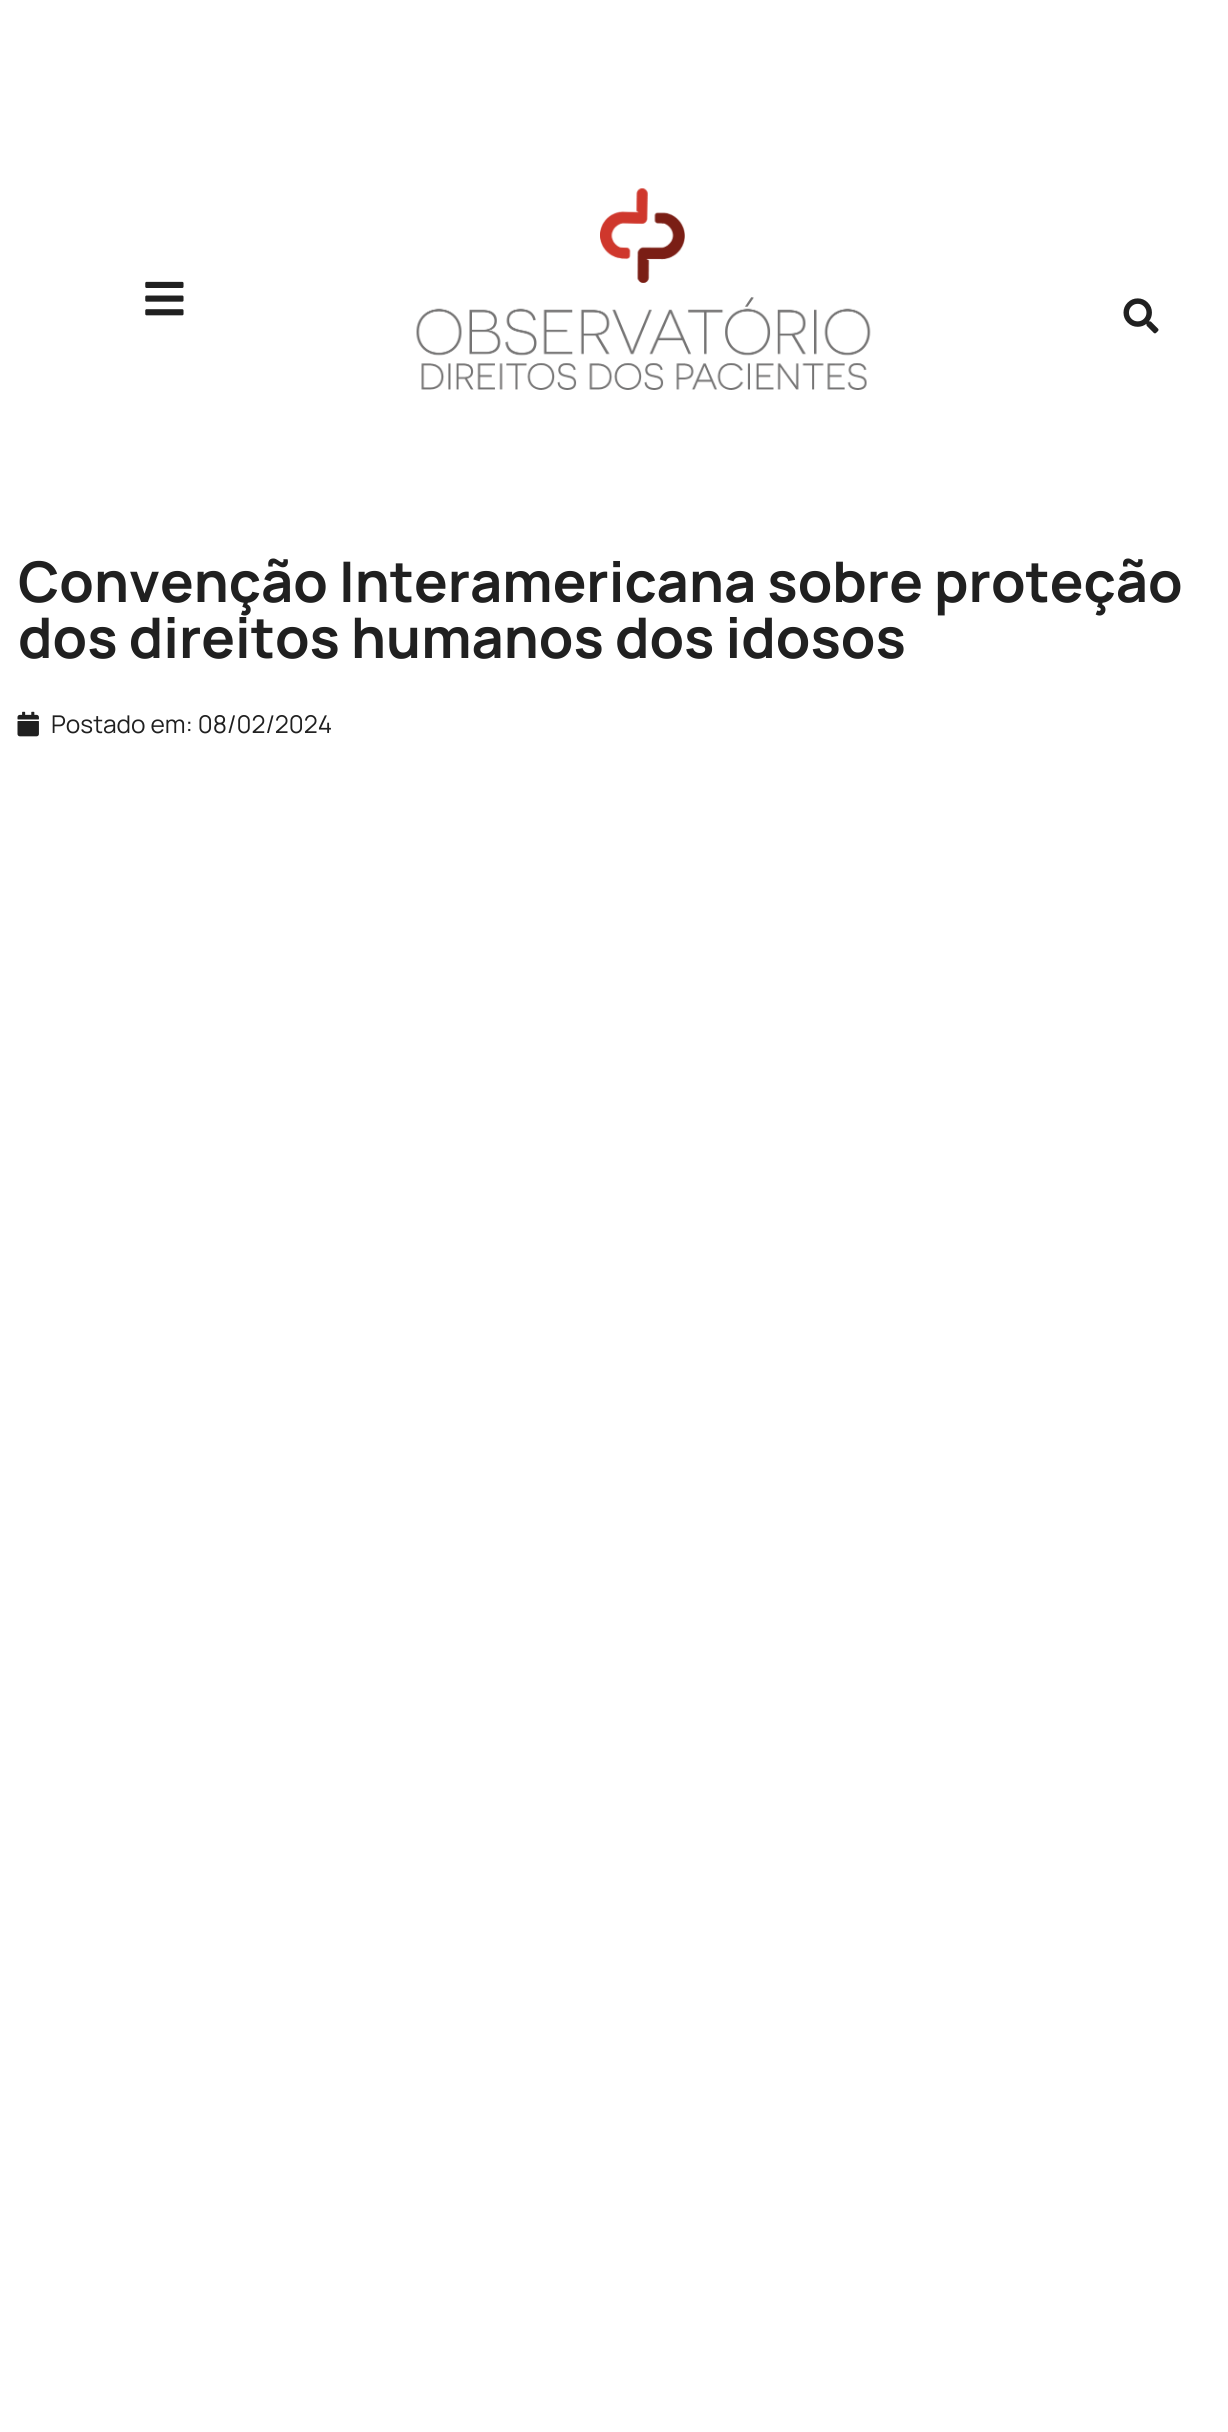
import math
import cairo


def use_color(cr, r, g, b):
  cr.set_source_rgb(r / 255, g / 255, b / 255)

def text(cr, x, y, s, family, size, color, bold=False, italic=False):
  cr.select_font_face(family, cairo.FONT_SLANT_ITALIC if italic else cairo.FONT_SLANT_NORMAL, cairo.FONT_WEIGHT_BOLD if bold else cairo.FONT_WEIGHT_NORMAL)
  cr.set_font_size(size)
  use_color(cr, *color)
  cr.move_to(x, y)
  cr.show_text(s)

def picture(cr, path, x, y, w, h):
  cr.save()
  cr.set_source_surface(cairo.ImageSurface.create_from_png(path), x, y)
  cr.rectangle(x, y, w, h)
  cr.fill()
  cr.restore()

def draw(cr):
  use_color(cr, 255, 255, 255)
  cr.paint()
  picture(cr, "img_01.png", 145, 281, 39, 35)
  picture(cr, "img_02.png", 416, 188, 455, 202)
  picture(cr, "img_03.png", 1123, 298, 36, 36)
  picture(cr, "img_04.png", 17, 711, 22, 26)
  text(cr, 18, 602, "Convenção Interamericana sobre proteção", "Manrope", 56, (32, 32, 32), bold=True)
  text(cr, 18, 658, "dos direitos humanos dos idosos", "Manrope", 56, (32, 32, 32), bold=True)
  text(cr, 51, 733, "Postado em: 08/02/2024", "Manrope", 24.5, (32, 32, 32))


surface = cairo.ImageSurface(cairo.FORMAT_RGB24, 1228, 2432)
cr = cairo.Context(surface)
options = cairo.FontOptions()
options.set_hint_metrics(cairo.HINT_METRICS_OFF)
options.set_hint_style(cairo.HINT_STYLE_NONE)
cr.set_font_options(options)
cr.set_miter_limit(4)
draw(cr)
surface.write_to_png("out.png")
